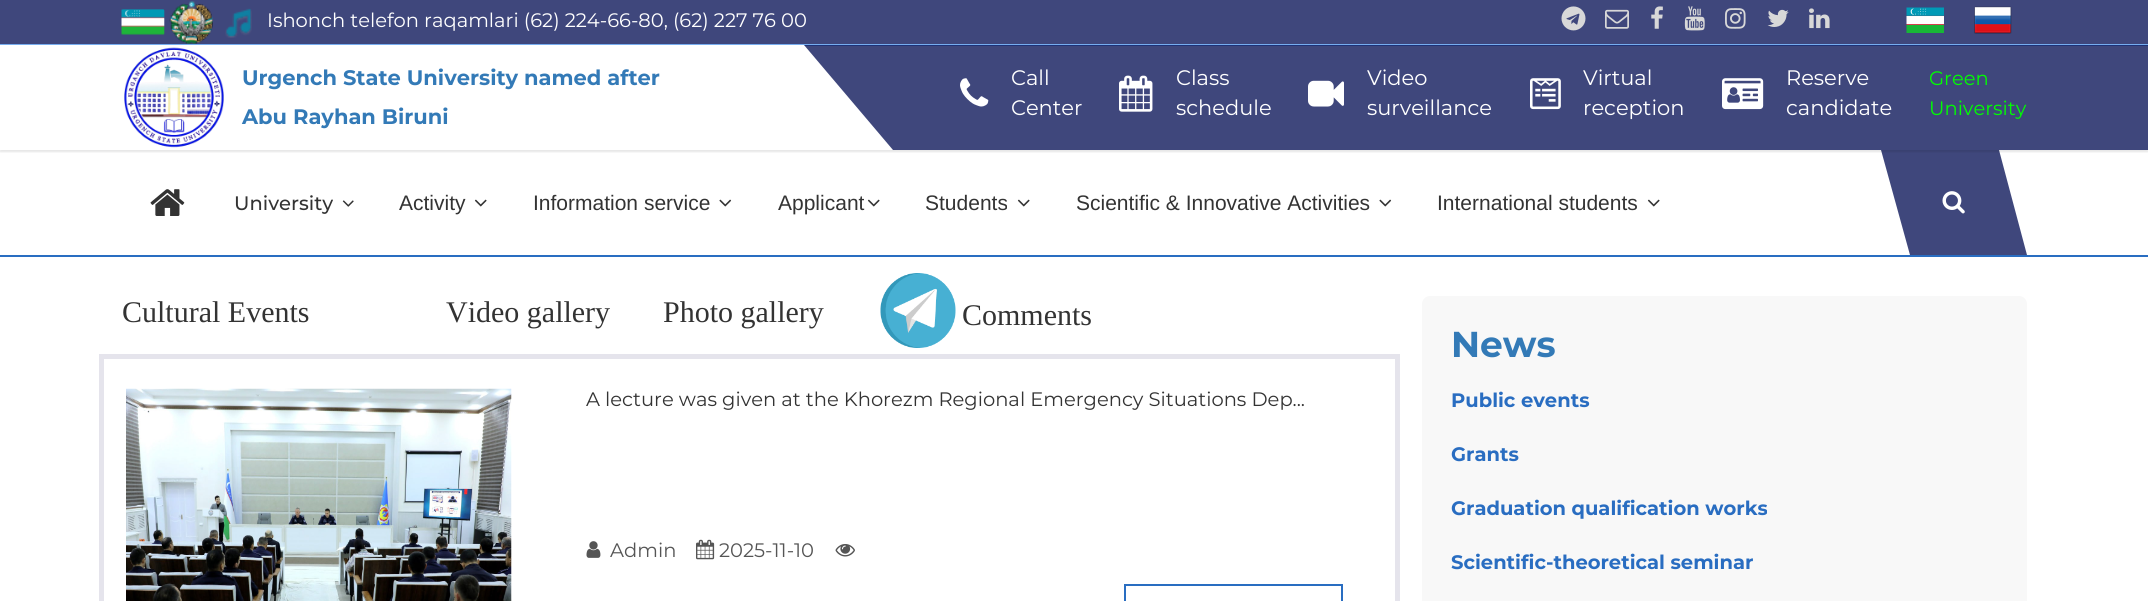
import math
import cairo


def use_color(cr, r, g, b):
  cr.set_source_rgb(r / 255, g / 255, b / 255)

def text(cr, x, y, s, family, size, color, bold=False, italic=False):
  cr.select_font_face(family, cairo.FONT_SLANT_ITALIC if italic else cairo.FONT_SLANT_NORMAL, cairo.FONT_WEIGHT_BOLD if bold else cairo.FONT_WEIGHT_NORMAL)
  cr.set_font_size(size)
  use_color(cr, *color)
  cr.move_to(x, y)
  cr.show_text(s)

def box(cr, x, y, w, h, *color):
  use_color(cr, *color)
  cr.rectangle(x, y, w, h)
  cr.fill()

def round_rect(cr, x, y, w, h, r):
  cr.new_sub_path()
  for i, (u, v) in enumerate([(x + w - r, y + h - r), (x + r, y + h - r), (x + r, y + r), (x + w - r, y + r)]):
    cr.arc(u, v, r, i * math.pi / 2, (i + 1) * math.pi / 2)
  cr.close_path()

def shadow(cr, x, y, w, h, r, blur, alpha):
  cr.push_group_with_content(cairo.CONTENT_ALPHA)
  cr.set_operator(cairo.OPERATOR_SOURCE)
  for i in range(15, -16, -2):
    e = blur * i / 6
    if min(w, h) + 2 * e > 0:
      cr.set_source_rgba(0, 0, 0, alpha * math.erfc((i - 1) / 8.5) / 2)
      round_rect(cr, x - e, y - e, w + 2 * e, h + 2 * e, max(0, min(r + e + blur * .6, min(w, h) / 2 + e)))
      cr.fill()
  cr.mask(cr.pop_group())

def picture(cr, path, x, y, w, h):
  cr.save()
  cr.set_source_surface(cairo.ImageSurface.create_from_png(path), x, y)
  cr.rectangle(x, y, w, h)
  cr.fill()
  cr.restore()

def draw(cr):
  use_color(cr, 255, 255, 255)
  cr.paint()
  box(cr, 804, 46, 1344, 104, 63, 71, 124)
  box(cr, 0, 0, 2148, 44, 63, 71, 124)
  box(cr, 0, 44, 2148, 1, 119, 173, 239)
  box(cr, 804, 45, 1344, 1, 30, 51, 120)
  picture(cr, "img_01.png", 121, 9, 44, 26)
  picture(cr, "img_02.png", 169, 1, 44, 43)
  picture(cr, "img_03.png", 225, 8, 27, 30)
  picture(cr, "img_04.png", 1561, 6, 25, 25)
  picture(cr, "img_05.png", 1605, 9, 24, 20)
  picture(cr, "img_06.png", 1651, 6, 12, 23)
  picture(cr, "img_07.png", 1684, 6, 21, 25)
  picture(cr, "img_08.png", 1725, 8, 21, 21)
  picture(cr, "img_09.png", 1767, 9, 22, 18)
  picture(cr, "img_10.png", 1809, 8, 21, 21)
  picture(cr, "img_11.png", 1906, 7, 38, 26)
  picture(cr, "img_12.png", 1974, 6, 38, 28)
  use_color(cr, 63, 71, 124)
  cr.new_path()
  cr.move_to(1881, 150)
  cr.line_to(1999, 150)
  cr.line_to(2027, 255)
  cr.line_to(1910, 255)
  cr.close_path()
  cr.fill()
  cr.save()
  cr.rectangle(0, 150, 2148, 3)
  cr.clip()
  use_color(cr, 0, 0, 0)
  shadow(cr, 0, 47, 2148, 105, 0, 1, 0.1)
  cr.restore()
  use_color(cr, 255, 255, 255)
  cr.new_path()
  cr.move_to(-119, 45)
  cr.line_to(804, 45)
  cr.line_to(893, 150)
  cr.line_to(-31, 150)
  cr.close_path()
  cr.fill()
  picture(cr, "img_13.png", 124, 47, 100, 101)
  picture(cr, "img_14.png", 960, 78, 29, 29)
  picture(cr, "img_15.png", 1119, 75, 34, 37)
  picture(cr, "img_16.png", 1308, 80, 36, 27)
  picture(cr, "img_17.png", 1530, 78, 31, 32)
  picture(cr, "img_18.png", 1722, 78, 42, 32)
  picture(cr, "img_19.png", 150, 189, 35, 27)
  picture(cr, "img_20.png", 342, 200, 12, 7)
  picture(cr, "img_21.png", 474, 199, 13, 8)
  picture(cr, "img_22.png", 719, 199, 13, 8)
  picture(cr, "img_21.png", 867, 199, 13, 8)
  picture(cr, "img_21.png", 1017, 199, 13, 8)
  picture(cr, "img_22.png", 1379, 199, 13, 8)
  picture(cr, "img_21.png", 1647, 199, 13, 8)
  picture(cr, "img_23.png", 1942, 191, 23, 23)
  box(cr, 0, 255, 2148, 2, 41, 109, 193)
  picture(cr, "img_24.png", 880, 273, 76, 75)
  cr.rectangle(101.5, 356.5, 1296, 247)
  use_color(cr, 229, 228, 236)
  cr.set_line_width(5)
  cr.stroke()
  picture(cr, "img_25.png", 126, 388, 386, 213)
  picture(cr, "img_26.png", 586, 541, 15, 17)
  picture(cr, "img_27.png", 696, 539, 19, 21)
  picture(cr, "img_28.png", 835, 544, 20, 13)
  cr.rectangle(1125, 585, 217, 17)
  use_color(cr, 41, 109, 193)
  cr.set_line_width(2)
  cr.stroke()
  use_color(cr, 248, 248, 248)
  round_rect(cr, 1422, 296, 605, 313, 8)
  cr.fill()
  text(cr, 267, 27, "Ishonch telefon raqamlari (62) 224-66-80, (62) 227 76 00", "Montserrat", 19.5, (255, 255, 255))
  text(cr, 242, 85, "Urgench State University named after", "Montserrat", 21, (51, 122, 183), bold=True)
  text(cr, 242, 124, "Abu Rayhan Biruni", "Montserrat", 21, (51, 122, 183), bold=True)
  text(cr, 1011, 85, "Call", "Montserrat", 21, (255, 255, 255))
  text(cr, 1011, 115, "Center", "Montserrat", 21, (255, 255, 255))
  text(cr, 1176, 85, "Class", "Montserrat", 21, (255, 255, 255))
  text(cr, 1176, 115, "schedule", "Montserrat", 21, (255, 255, 255))
  text(cr, 1367, 85, "Video", "Montserrat", 21, (255, 255, 255))
  text(cr, 1367, 115, "surveillance", "Montserrat", 21, (255, 255, 255))
  text(cr, 1583, 85, "Virtual", "Montserrat", 21, (255, 255, 255))
  text(cr, 1583, 115, "reception", "Montserrat", 21, (255, 255, 255))
  text(cr, 1786, 85, "Reserve", "Montserrat", 21, (255, 255, 255))
  text(cr, 1786, 115, "candidate", "Montserrat", 21, (255, 255, 255))
  text(cr, 1929, 85, "Green", "Montserrat", 19.5, (0, 255, 0))
  text(cr, 1929, 115, "University", "Montserrat", 19.5, (0, 255, 0))
  text(cr, 234, 210, "University", "Montserrat Medium", 19.5, (51, 51, 51))
  text(cr, 399, 210, "Activity", "Liberation Sans", 21, (51, 51, 51))
  text(cr, 533, 210, "Information service", "Liberation Sans", 21, (51, 51, 51))
  text(cr, 778, 210, "Applicant", "Liberation Sans", 21, (51, 51, 51))
  text(cr, 925, 210, "Students", "Liberation Sans", 21, (51, 51, 51))
  text(cr, 1076, 210, "Scientific & Innovative Activities", "Liberation Sans", 21, (51, 51, 51))
  text(cr, 1437, 210, "International students", "Liberation Sans", 21, (51, 51, 51))
  text(cr, 122, 322, "Cultural Events", "Liberation Serif", 30, (51, 51, 51))
  text(cr, 446, 322, "Video gallery", "Liberation Serif", 30, (51, 51, 51))
  text(cr, 663, 322, "Photo gallery", "Liberation Serif", 30, (51, 51, 51))
  text(cr, 962, 325, "Comments", "Liberation Serif", 30, (51, 51, 51))
  text(cr, 586, 406, "A lecture was given at the Khorezm Regional Emergency Situations Dep...", "Montserrat", 19.5, (51, 51, 51))
  text(cr, 610, 557, "Admin", "Montserrat", 19.5, (85, 85, 85))
  text(cr, 719, 557, "2025-11-10", "Montserrat", 19.5, (85, 85, 85))
  text(cr, 1451, 357, "News", "Montserrat", 36, (51, 122, 183), bold=True)
  text(cr, 1451, 407, "Public events", "Montserrat", 19.5, (41, 109, 193), bold=True)
  text(cr, 1451, 461, "Grants", "Montserrat", 19.5, (41, 109, 193), bold=True)
  text(cr, 1451, 515, "Graduation qualification works", "Montserrat", 19.5, (41, 109, 193), bold=True)
  text(cr, 1451, 569, "Scientific-theoretical seminar", "Montserrat", 19.5, (41, 109, 193), bold=True)


surface = cairo.ImageSurface(cairo.FORMAT_RGB24, 2148, 601)
cr = cairo.Context(surface)
options = cairo.FontOptions()
options.set_hint_metrics(cairo.HINT_METRICS_OFF)
options.set_hint_style(cairo.HINT_STYLE_NONE)
cr.set_font_options(options)
cr.set_miter_limit(4)
draw(cr)
surface.write_to_png("out.png")
